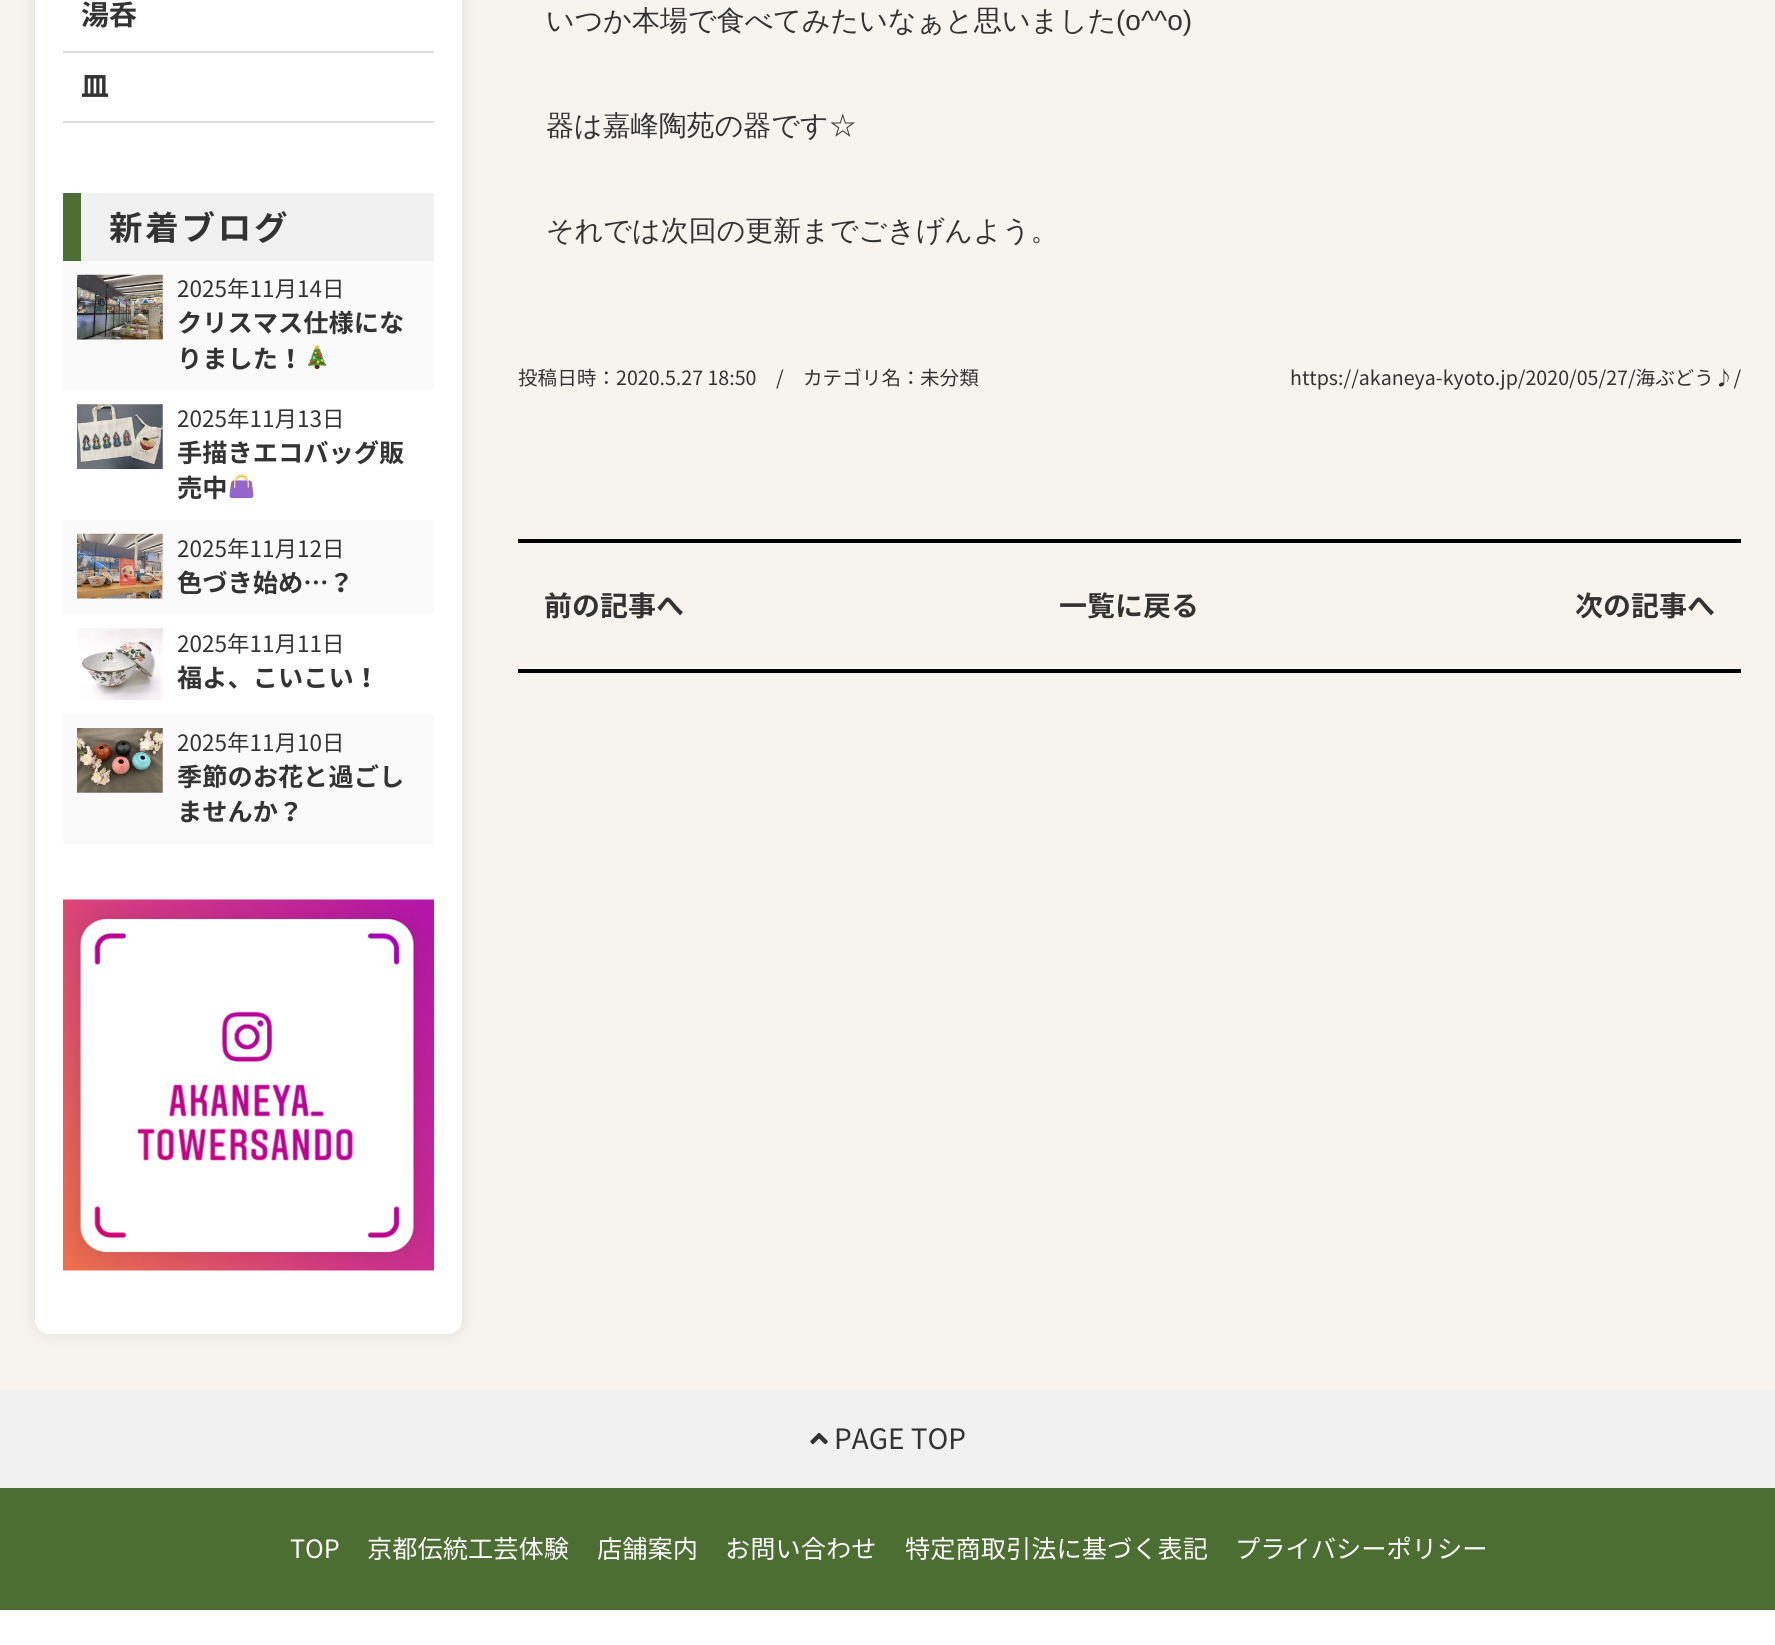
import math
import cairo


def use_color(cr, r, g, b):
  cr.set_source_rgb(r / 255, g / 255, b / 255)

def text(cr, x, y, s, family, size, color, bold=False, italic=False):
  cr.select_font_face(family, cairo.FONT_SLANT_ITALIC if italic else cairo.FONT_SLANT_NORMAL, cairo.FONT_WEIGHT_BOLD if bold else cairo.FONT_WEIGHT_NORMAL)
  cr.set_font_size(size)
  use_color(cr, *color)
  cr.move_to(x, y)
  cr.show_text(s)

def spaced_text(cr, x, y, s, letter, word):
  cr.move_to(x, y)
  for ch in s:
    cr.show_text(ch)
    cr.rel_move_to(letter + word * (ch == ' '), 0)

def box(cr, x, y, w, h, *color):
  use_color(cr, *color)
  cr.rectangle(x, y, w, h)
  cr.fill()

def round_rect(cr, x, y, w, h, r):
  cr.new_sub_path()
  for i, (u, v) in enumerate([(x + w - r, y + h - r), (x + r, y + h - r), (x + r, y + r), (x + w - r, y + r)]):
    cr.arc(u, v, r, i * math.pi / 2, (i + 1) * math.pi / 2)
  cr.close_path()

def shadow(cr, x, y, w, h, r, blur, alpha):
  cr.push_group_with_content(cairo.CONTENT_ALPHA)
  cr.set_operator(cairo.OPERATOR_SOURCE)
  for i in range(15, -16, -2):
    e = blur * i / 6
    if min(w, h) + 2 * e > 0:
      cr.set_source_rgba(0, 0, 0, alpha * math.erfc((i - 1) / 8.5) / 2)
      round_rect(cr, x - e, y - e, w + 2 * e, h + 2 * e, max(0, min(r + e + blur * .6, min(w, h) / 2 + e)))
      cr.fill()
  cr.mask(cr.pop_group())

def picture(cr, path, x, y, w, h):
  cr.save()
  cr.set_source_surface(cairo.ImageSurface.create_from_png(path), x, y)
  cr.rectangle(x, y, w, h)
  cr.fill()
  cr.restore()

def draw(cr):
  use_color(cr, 255, 255, 255)
  cr.paint()
  box(cr, 0, 0, 1775, 1390, 247, 244, 239)
  use_color(cr, 0, 0, 0)
  shadow(cr, 35, -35, 427, 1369, 14, 7, 0.1)
  use_color(cr, 255, 255, 255)
  round_rect(cr, 35, -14, 427, 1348, 14)
  cr.fill()
  box(cr, 63, 51, 371, 2, 221, 221, 221)
  box(cr, 63, 121, 371, 2, 221, 221, 221)
  box(cr, 81, 193, 353, 68, 241, 241, 241)
  box(cr, 63, 193, 18, 68, 76, 110, 50)
  box(cr, 63, 261, 371, 129, 250, 250, 250)
  picture(cr, "img_01.png", 77, 274, 86, 66)
  picture(cr, "img_02.png", 307, 345, 20, 24)
  picture(cr, "img_03.png", 77, 404, 86, 65)
  picture(cr, "img_04.png", 229, 474, 25, 25)
  box(cr, 63, 520, 371, 94, 250, 250, 250)
  picture(cr, "img_05.png", 77, 533, 86, 66)
  picture(cr, "img_06.png", 77, 628, 86, 72)
  box(cr, 63, 714, 371, 130, 250, 250, 250)
  picture(cr, "img_07.png", 77, 728, 86, 65)
  picture(cr, "img_08.png", 63, 899, 371, 372)
  box(cr, 518, 539, 1223, 4, 0, 0, 0)
  box(cr, 518, 669, 1223, 4, 0, 0, 0)
  box(cr, 0, 1390, 1775, 98, 241, 241, 241)
  picture(cr, "img_09.png", 810, 1432, 18, 13)
  box(cr, 0, 1488, 1775, 122, 76, 110, 50)
  text(cr, 81, 25, "湯呑", "Noto Sans CJK JP", 28, (51, 51, 51), bold=True)
  text(cr, 81, 96, "皿", "Noto Sans CJK JP", 28, (51, 51, 51), bold=True)
  cr.set_font_size(33.5)
  spaced_text(cr, 109, 240, "新着ブログ", 2.75, 0)
  text(cr, 177, 297, "2025年11月14日", "Noto Sans CJK JP", 22.5, (51, 51, 51))
  text(cr, 177, 332, "クリスマス仕様にな", "Noto Sans CJK JP", 25.25, (51, 51, 51), bold=True)
  text(cr, 177, 368, "りました！", "Noto Sans CJK JP", 25.25, (51, 51, 51), bold=True)
  text(cr, 177, 427, "2025年11月13日", "Noto Sans CJK JP", 22.5, (51, 51, 51))
  text(cr, 177, 462, "手描きエコバッグ販", "Noto Sans CJK JP", 25.25, (51, 51, 51), bold=True)
  text(cr, 177, 497, "売中", "Noto Sans CJK JP", 25.25, (51, 51, 51), bold=True)
  text(cr, 177, 557, "2025年11月12日", "Noto Sans CJK JP", 22.5, (51, 51, 51))
  text(cr, 177, 592, "色づき始め…？", "Noto Sans CJK JP", 25.25, (51, 51, 51), bold=True)
  text(cr, 177, 652, "2025年11月11日", "Noto Sans CJK JP", 22.5, (51, 51, 51))
  text(cr, 177, 687, "福よ、こいこい！", "Noto Sans CJK JP", 25.25, (51, 51, 51), bold=True)
  text(cr, 177, 751, "2025年11月10日", "Noto Sans CJK JP", 22.5, (51, 51, 51))
  text(cr, 177, 786, "季節のお花と過ごし", "Noto Sans CJK JP", 25.25, (51, 51, 51), bold=True)
  text(cr, 177, 821, "ませんか？", "Noto Sans CJK JP", 25.25, (51, 51, 51), bold=True)
  text(cr, 546, 30, "いつか本場で食べてみたいなぁと思いました", "WenQuanYi Zen Hei Medium", 28, (51, 51, 51))
  text(cr, 1116, 30, "(o^^o)", "Liberation Sans", 28, (51, 51, 51))
  text(cr, 546, 135, "器は嘉峰陶苑の器です☆", "WenQuanYi Zen Hei Medium", 28, (51, 51, 51))
  text(cr, 546, 240, "それでは次回の更新までごきげんよう。", "WenQuanYi Zen Hei Medium", 28, (51, 51, 51))
  text(cr, 518, 385, "投稿日時：2020.5.27 18:50", "Noto Sans CJK JP", 19.6, (51, 51, 51))
  text(cr, 776, 385, "/", "Noto Sans CJK JP", 19.6, (51, 51, 51))
  text(cr, 803, 385, "カテゴリ名：", "Noto Sans CJK JP", 19.6, (51, 51, 51))
  text(cr, 920, 385, "未分類", "Noto Sans CJK JP", 19.6, (51, 51, 51))
  text(cr, 1290, 385, "https://akaneya-kyoto.jp/2020/05/27/海ぶどう♪/", "Noto Sans CJK JP", 19.6, (51, 51, 51))
  text(cr, 544, 616, "前の記事へ", "Noto Sans CJK JP", 28, (51, 51, 51), bold=True)
  text(cr, 1059, 616, "一覧に戻る", "Noto Sans CJK JP", 28, (51, 51, 51), bold=True)
  text(cr, 1575, 616, "次の記事へ", "Noto Sans CJK JP", 28, (51, 51, 51), bold=True)
  text(cr, 834, 1449, "PAGE TOP", "Noto Sans CJK JP", 28, (51, 51, 51))
  text(cr, 290, 1558, "TOP", "Noto Sans CJK JP", 25.25, (255, 255, 255))
  text(cr, 367, 1558, "京都伝統工芸体験", "Noto Sans CJK JP", 25.25, (255, 255, 255))
  text(cr, 597, 1558, "店舗案内", "Noto Sans CJK JP", 25.25, (255, 255, 255))
  text(cr, 725, 1558, "お問い合わせ", "Noto Sans CJK JP", 25.25, (255, 255, 255))
  text(cr, 905, 1558, "特定商取引法に基づく表記", "Noto Sans CJK JP", 25.25, (255, 255, 255))
  text(cr, 1235, 1558, "プライバシーポリシー", "Noto Sans CJK JP", 25.25, (255, 255, 255))


surface = cairo.ImageSurface(cairo.FORMAT_RGB24, 1775, 1645)
cr = cairo.Context(surface)
options = cairo.FontOptions()
options.set_hint_metrics(cairo.HINT_METRICS_OFF)
options.set_hint_style(cairo.HINT_STYLE_NONE)
cr.set_font_options(options)
cr.set_miter_limit(4)
draw(cr)
surface.write_to_png("out.png")
